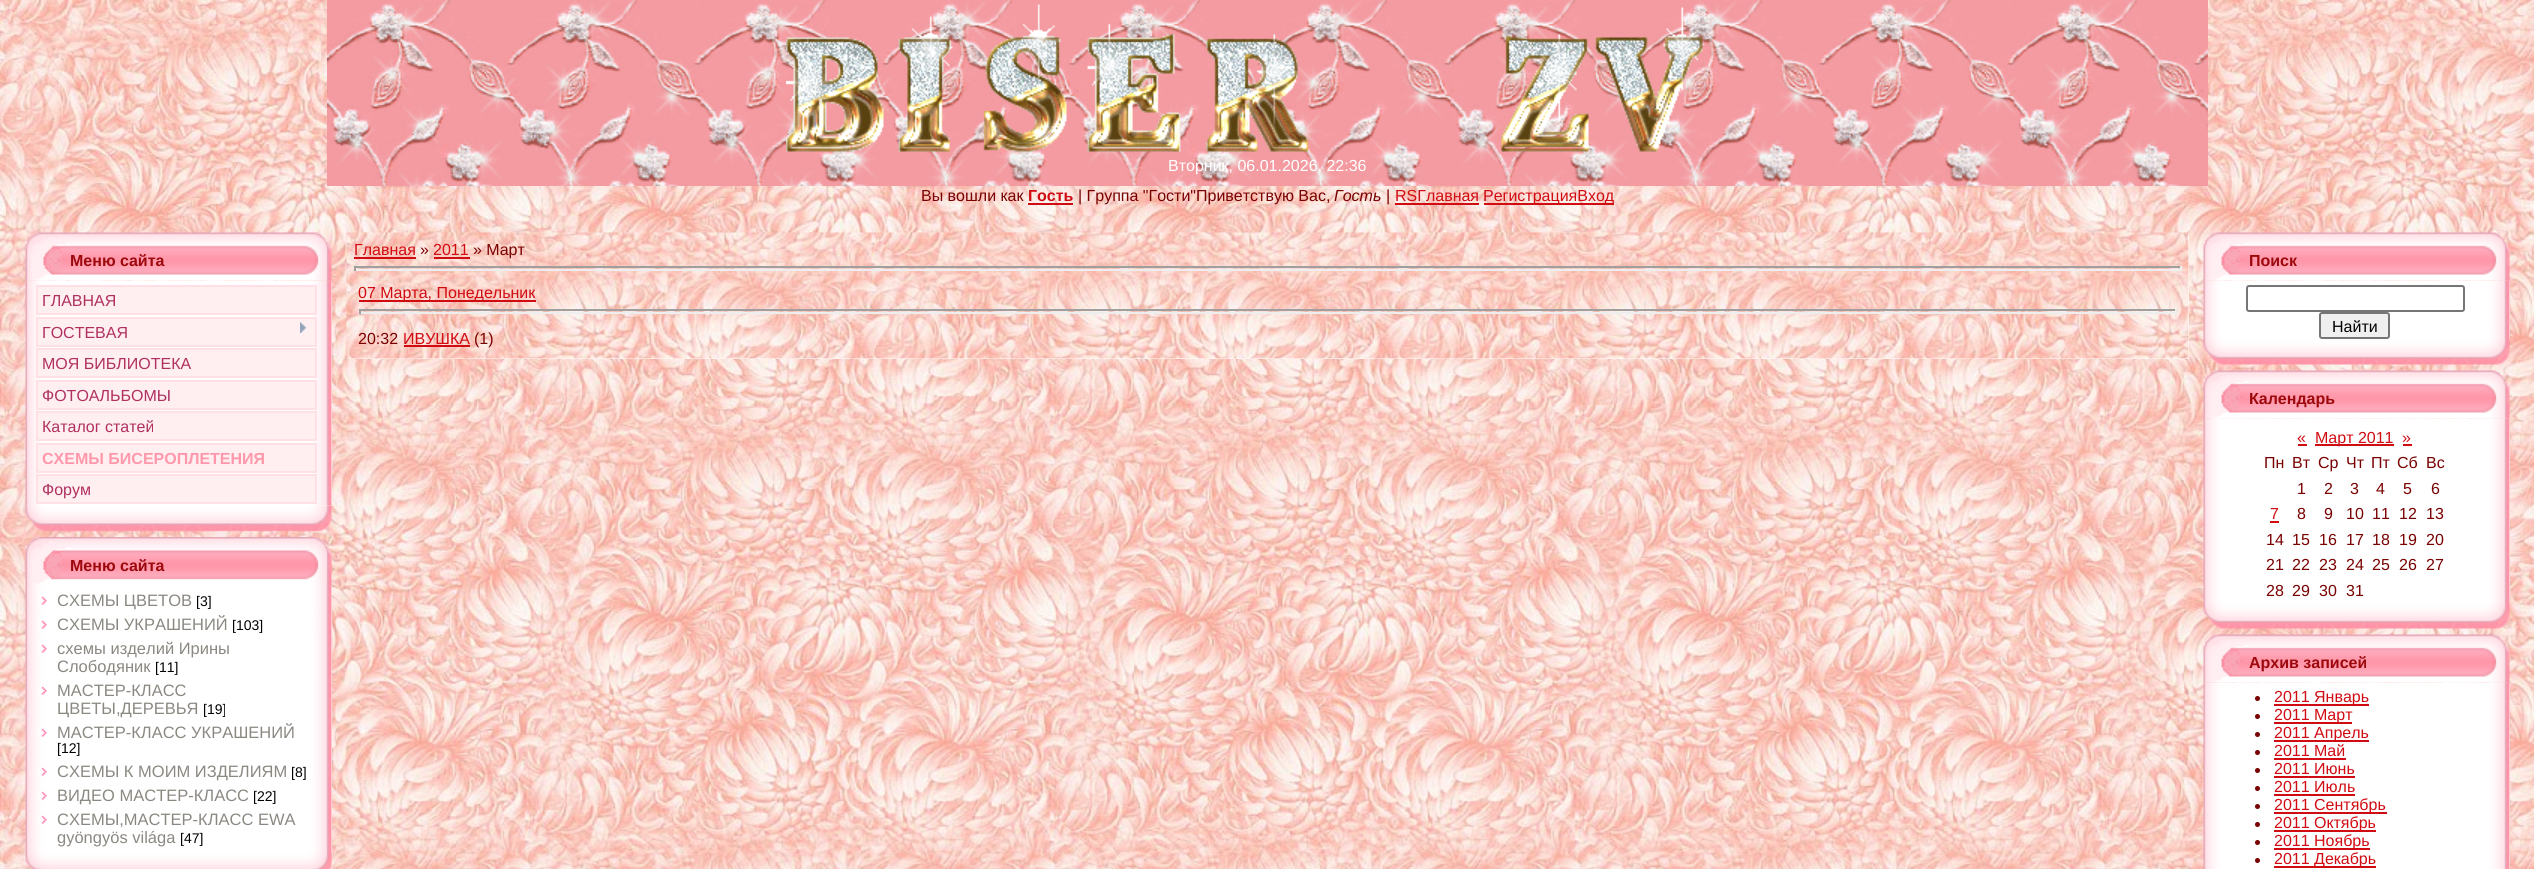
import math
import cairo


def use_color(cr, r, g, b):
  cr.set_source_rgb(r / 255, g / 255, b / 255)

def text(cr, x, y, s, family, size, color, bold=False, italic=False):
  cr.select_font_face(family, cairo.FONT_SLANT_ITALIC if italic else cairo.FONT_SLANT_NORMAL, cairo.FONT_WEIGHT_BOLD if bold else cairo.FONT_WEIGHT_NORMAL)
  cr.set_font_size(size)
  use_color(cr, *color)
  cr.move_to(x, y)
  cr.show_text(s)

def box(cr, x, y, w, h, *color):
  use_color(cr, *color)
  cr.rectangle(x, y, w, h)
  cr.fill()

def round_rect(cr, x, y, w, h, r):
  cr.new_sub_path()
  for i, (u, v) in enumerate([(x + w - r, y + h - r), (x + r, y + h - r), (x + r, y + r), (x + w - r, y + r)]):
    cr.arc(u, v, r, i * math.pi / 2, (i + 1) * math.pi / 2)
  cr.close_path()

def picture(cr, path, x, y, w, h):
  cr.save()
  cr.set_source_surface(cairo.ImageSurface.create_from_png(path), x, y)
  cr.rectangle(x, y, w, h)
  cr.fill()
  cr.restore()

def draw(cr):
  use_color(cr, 255, 255, 255)
  cr.paint()
  picture(cr, "img_01.png", 0, 0, 2534, 869)
  picture(cr, "img_02.png", 327, 0, 1881, 186)
  picture(cr, "img_03.png", 327, 23, 375, 163)
  picture(cr, "img_04.png", 786, 37, 98, 115)
  picture(cr, "img_05.png", 898, 16, 55, 136)
  picture(cr, "img_06.png", 983, 4, 84, 148)
  picture(cr, "img_07.png", 1087, 23, 94, 129)
  picture(cr, "img_08.png", 1205, 34, 104, 118)
  picture(cr, "img_09.png", 1501, 34, 88, 118)
  picture(cr, "img_10.png", 1595, 7, 110, 145)
  box(cr, 1028, 203, 45, 2, 209, 11, 18)
  box(cr, 1395, 203, 84, 2, 209, 11, 18)
  box(cr, 1484, 203, 130, 2, 209, 11, 18)
  picture(cr, "img_11.png", 25, 232, 307, 49)
  box(cr, 26, 281, 306, 225, 255, 255, 255)
  picture(cr, "img_12.png", 25, 280, 307, 226)
  use_color(cr, 255, 239, 241)
  cr.rectangle(37, 286, 279, 28)
  cr.fill_preserve()
  use_color(cr, 255, 224, 228)
  cr.stroke()
  use_color(cr, 255, 239, 241)
  cr.rectangle(37, 318, 279, 28)
  cr.fill_preserve()
  use_color(cr, 255, 224, 228)
  cr.stroke()
  picture(cr, "img_13.png", 300, 322, 6, 11)
  use_color(cr, 255, 239, 241)
  cr.rectangle(37, 349, 279, 28)
  cr.fill_preserve()
  use_color(cr, 255, 224, 228)
  cr.stroke()
  use_color(cr, 255, 239, 241)
  cr.rectangle(37, 381, 279, 28)
  cr.fill_preserve()
  use_color(cr, 255, 224, 228)
  cr.stroke()
  use_color(cr, 255, 239, 241)
  cr.rectangle(37, 412, 279, 28)
  cr.fill_preserve()
  use_color(cr, 255, 224, 228)
  cr.stroke()
  use_color(cr, 255, 239, 241)
  cr.rectangle(37, 444, 279, 28)
  cr.fill_preserve()
  use_color(cr, 255, 224, 228)
  cr.stroke()
  use_color(cr, 255, 239, 241)
  cr.rectangle(37, 475, 279, 28)
  cr.fill_preserve()
  use_color(cr, 255, 224, 228)
  cr.stroke()
  picture(cr, "img_14.png", 25, 505, 307, 27)
  picture(cr, "img_15.png", 25, 537, 307, 48)
  box(cr, 331, 585, 1, 267, 255, 255, 255)
  picture(cr, "img_16.png", 25, 585, 307, 267)
  picture(cr, "img_17.png", 38, 596, 9, 9)
  picture(cr, "img_17.png", 38, 620, 9, 9)
  picture(cr, "img_18.png", 38, 644, 9, 9)
  picture(cr, "img_17.png", 38, 686, 9, 9)
  picture(cr, "img_18.png", 38, 728, 9, 9)
  picture(cr, "img_17.png", 38, 767, 9, 9)
  picture(cr, "img_18.png", 38, 791, 9, 9)
  picture(cr, "img_18.png", 38, 815, 9, 9)
  picture(cr, "img_19.png", 25, 852, 307, 17)
  box(cr, 347, 233, 1842, 126, 255, 255, 255)
  picture(cr, "img_20.png", 346, 232, 1843, 127)
  box(cr, 354, 257, 62, 2, 209, 11, 18)
  box(cr, 434, 257, 36, 2, 209, 11, 18)
  box(cr, 354, 266, 1827, 2, 159, 159, 159)
  box(cr, 2180, 266, 2, 5, 238, 238, 238)
  box(cr, 354, 269, 1827, 2, 238, 238, 238)
  box(cr, 354, 266, 2, 5, 159, 159, 159)
  box(cr, 359, 300, 177, 2, 209, 11, 18)
  box(cr, 359, 309, 1818, 2, 159, 159, 159)
  box(cr, 2175, 309, 2, 5, 238, 238, 238)
  box(cr, 359, 312, 1818, 2, 238, 238, 238)
  box(cr, 359, 309, 2, 5, 159, 159, 159)
  box(cr, 404, 345, 66, 2, 209, 11, 18)
  picture(cr, "img_21.png", 2203, 232, 307, 49)
  box(cr, 2509, 281, 1, 58, 255, 255, 255)
  picture(cr, "img_22.png", 2203, 280, 307, 59)
  round_rect(cr, 2247, 286, 217, 25, 2)
  use_color(cr, 118, 118, 118)
  cr.stroke()
  use_color(cr, 239, 239, 239)
  round_rect(cr, 2320, 313, 69, 25, 2)
  cr.fill_preserve()
  use_color(cr, 118, 118, 118)
  cr.stroke()
  picture(cr, "img_23.png", 2203, 339, 307, 26)
  picture(cr, "img_24.png", 2203, 370, 307, 49)
  box(cr, 2509, 419, 1, 184, 255, 255, 255)
  picture(cr, "img_25.png", 2203, 418, 307, 185)
  box(cr, 2298, 444, 9, 2, 209, 11, 18)
  box(cr, 2315, 444, 79, 2, 209, 11, 18)
  box(cr, 2403, 444, 9, 2, 209, 11, 18)
  box(cr, 2270, 521, 9, 2, 209, 11, 18)
  picture(cr, "img_26.png", 2203, 603, 307, 26)
  picture(cr, "img_27.png", 2203, 634, 307, 49)
  box(cr, 2509, 683, 1, 186, 255, 255, 255)
  picture(cr, "img_28.png", 2203, 682, 307, 187)
  use_color(cr, 121, 0, 0)
  cr.arc(2257.5, 698.5, 2.5, 0, 2 * math.pi)
  cr.fill()
  box(cr, 2274, 704, 95, 2, 209, 11, 18)
  use_color(cr, 121, 0, 0)
  cr.arc(2257.5, 716.5, 2.5, 0, 2 * math.pi)
  cr.fill()
  box(cr, 2274, 722, 78, 2, 209, 11, 18)
  use_color(cr, 121, 0, 0)
  cr.arc(2257.5, 734.5, 2.5, 0, 2 * math.pi)
  cr.fill()
  box(cr, 2274, 740, 95, 2, 209, 11, 18)
  use_color(cr, 121, 0, 0)
  cr.arc(2257.5, 752.5, 2.5, 0, 2 * math.pi)
  cr.fill()
  box(cr, 2274, 758, 72, 2, 209, 11, 18)
  use_color(cr, 121, 0, 0)
  cr.arc(2257.5, 770.5, 2.5, 0, 2 * math.pi)
  cr.fill()
  box(cr, 2274, 776, 81, 2, 209, 11, 18)
  use_color(cr, 121, 0, 0)
  cr.arc(2257.5, 788.5, 2.5, 0, 2 * math.pi)
  cr.fill()
  box(cr, 2274, 794, 81, 2, 209, 11, 18)
  use_color(cr, 121, 0, 0)
  cr.arc(2257.5, 806.5, 2.5, 0, 2 * math.pi)
  cr.fill()
  box(cr, 2274, 812, 113, 2, 209, 11, 18)
  use_color(cr, 121, 0, 0)
  cr.arc(2257.5, 824.5, 2.5, 0, 2 * math.pi)
  cr.fill()
  box(cr, 2274, 830, 102, 2, 209, 11, 18)
  use_color(cr, 121, 0, 0)
  cr.arc(2257.5, 842.5, 2.5, 0, 2 * math.pi)
  cr.fill()
  box(cr, 2274, 848, 96, 2, 209, 11, 18)
  use_color(cr, 121, 0, 0)
  cr.arc(2257.5, 860.5, 2.5, 0, 2 * math.pi)
  cr.fill()
  box(cr, 2274, 866, 102, 2, 209, 11, 18)
  text(cr, 1168, 171, "Вторник, 06.01.2026, 22:36", "Liberation Sans", 16, (255, 255, 255))
  text(cr, 921, 201, "Вы вошли как", "Liberation Sans", 16, (121, 0, 0))
  text(cr, 1028, 201, "Гость", "Liberation Sans", 16, (209, 11, 18), bold=True)
  text(cr, 1078, 201, "| Группа \"Гости\"Приветствую Вас,", "Liberation Sans", 16, (121, 0, 0))
  text(cr, 1334, 201, "Гость", "Liberation Sans", 16, (121, 0, 0), italic=True)
  text(cr, 1386, 201, "|", "Liberation Sans", 16, (121, 0, 0))
  text(cr, 1395, 201, "RSГлавная", "Liberation Sans", 16, (209, 11, 18))
  text(cr, 1483, 201, "РегистрацияВход", "Liberation Sans", 16, (209, 11, 18))
  text(cr, 70, 266, "Меню сайта", "Liberation Sans", 16, (157, 8, 13), bold=True)
  text(cr, 42, 306, "ГЛАВНАЯ", "Liberation Sans", 16, (176, 48, 96))
  text(cr, 42, 338, "ГОСТЕВАЯ", "Liberation Sans", 16, (176, 48, 96))
  text(cr, 42, 369, "МОЯ БИБЛИОТЕКА", "Liberation Sans", 16, (176, 48, 96))
  text(cr, 42, 401, "ФОТОАЛЬБОМЫ", "Liberation Sans", 16, (176, 48, 96))
  text(cr, 42, 432, "Каталог статей", "Liberation Sans", 16, (176, 48, 96))
  text(cr, 42, 464, "СХЕМЫ БИСЕРОПЛЕТЕНИЯ", "Liberation Sans", 16, (255, 152, 170), bold=True)
  text(cr, 42, 495, "Форум", "Liberation Sans", 16, (176, 48, 96))
  text(cr, 70, 571, "Меню сайта", "Liberation Sans", 16, (157, 8, 13), bold=True)
  text(cr, 57, 606, "СХЕМЫ ЦВЕТОВ", "Liberation Sans", 16.5, (139, 136, 129))
  text(cr, 196, 606, "[3]", "Liberation Sans", 14, (0, 0, 0))
  text(cr, 57, 630, "СХЕМЫ УКРАШЕНИЙ", "Liberation Sans", 16.5, (139, 136, 129))
  text(cr, 232, 630, "[103]", "Liberation Sans", 14, (0, 0, 0))
  text(cr, 57, 654, "схемы изделий Ирины", "Liberation Sans", 16.5, (139, 136, 129))
  text(cr, 57, 672, "Слободяник", "Liberation Sans", 16.5, (139, 136, 129))
  text(cr, 155, 672, "[11]", "Liberation Sans", 14, (0, 0, 0))
  text(cr, 57, 696, "МАСТЕР-КЛАСС", "Liberation Sans", 16.5, (139, 136, 129))
  text(cr, 57, 714, "ЦВЕТЫ,ДЕРЕВЬЯ", "Liberation Sans", 16.5, (139, 136, 129))
  text(cr, 203, 714, "[19]", "Liberation Sans", 14, (0, 0, 0))
  text(cr, 57, 738, "МАСТЕР-КЛАСС УКРАШЕНИЙ", "Liberation Sans", 16.5, (139, 136, 129))
  text(cr, 57, 753, "[12]", "Liberation Sans", 14, (0, 0, 0))
  text(cr, 57, 777, "СХЕМЫ К МОИМ ИЗДЕЛИЯМ", "Liberation Sans", 16.5, (139, 136, 129))
  text(cr, 291, 777, "[8]", "Liberation Sans", 14, (0, 0, 0))
  text(cr, 57, 801, "ВИДЕО МАСТЕР-КЛАСС", "Liberation Sans", 16.5, (139, 136, 129))
  text(cr, 253, 801, "[22]", "Liberation Sans", 14, (0, 0, 0))
  text(cr, 57, 825, "СХЕМЫ,МАСТЕР-КЛАСС EWA", "Liberation Sans", 16.5, (139, 136, 129))
  text(cr, 57, 843, "gyöngyös világa", "Liberation Sans", 16.5, (139, 136, 129))
  text(cr, 180, 843, "[47]", "Liberation Sans", 14, (0, 0, 0))
  text(cr, 354, 255, "Главная", "Liberation Sans", 16, (209, 11, 18))
  text(cr, 420, 255, "»", "Liberation Sans", 16, (121, 0, 0))
  text(cr, 433, 255, "2011", "Liberation Sans", 16, (209, 11, 18))
  text(cr, 473, 255, "» Март", "Liberation Sans", 16, (121, 0, 0))
  text(cr, 358, 298, "07 Марта, Понедельник", "Liberation Sans", 16, (209, 11, 18))
  text(cr, 358, 344, "20:32", "Liberation Sans", 16, (121, 0, 0))
  text(cr, 403, 344, "ИВУШКА", "Liberation Sans", 16, (209, 11, 18))
  text(cr, 474, 344, "(1)", "Liberation Sans", 16, (121, 0, 0))
  text(cr, 2249, 266, "Поиск", "Liberation Sans", 16, (157, 8, 13), bold=True)
  text(cr, 2332, 332, "Найти", "Liberation Sans", 16, (0, 0, 0))
  text(cr, 2249, 404, "Календарь", "Liberation Sans", 16, (157, 8, 13), bold=True)
  text(cr, 2297, 443, "«", "Liberation Sans", 16, (209, 11, 18))
  text(cr, 2315, 443, "Март 2011", "Liberation Sans", 16, (209, 11, 18))
  text(cr, 2402, 443, "»", "Liberation Sans", 16, (209, 11, 18))
  text(cr, 2264, 468, "Пн", "Liberation Sans", 16, (121, 0, 0))
  text(cr, 2292, 468, "Вт", "Liberation Sans", 16, (121, 0, 0))
  text(cr, 2318, 468, "Ср", "Liberation Sans", 16, (121, 0, 0))
  text(cr, 2346, 468, "Чт", "Liberation Sans", 16, (121, 0, 0))
  text(cr, 2371, 468, "Пт", "Liberation Sans", 16, (121, 0, 0))
  text(cr, 2397, 468, "Сб", "Liberation Sans", 16, (121, 0, 0))
  text(cr, 2426, 468, "Вс", "Liberation Sans", 16, (121, 0, 0))
  text(cr, 2297, 494, "1", "Liberation Sans", 16, (121, 0, 0))
  text(cr, 2324, 494, "2", "Liberation Sans", 16, (121, 0, 0))
  text(cr, 2350, 494, "3", "Liberation Sans", 16, (121, 0, 0))
  text(cr, 2376, 494, "4", "Liberation Sans", 16, (121, 0, 0))
  text(cr, 2403, 494, "5", "Liberation Sans", 16, (121, 0, 0))
  text(cr, 2431, 494, "6", "Liberation Sans", 16, (121, 0, 0))
  text(cr, 2270, 519, "7", "Liberation Sans", 16, (209, 11, 18))
  text(cr, 2297, 519, "8", "Liberation Sans", 16, (121, 0, 0))
  text(cr, 2324, 519, "9", "Liberation Sans", 16, (121, 0, 0))
  text(cr, 2346, 519, "10", "Liberation Sans", 16, (121, 0, 0))
  text(cr, 2372, 519, "11", "Liberation Sans", 16, (121, 0, 0))
  text(cr, 2399, 519, "12", "Liberation Sans", 16, (121, 0, 0))
  text(cr, 2426, 519, "13", "Liberation Sans", 16, (121, 0, 0))
  text(cr, 2266, 545, "14", "Liberation Sans", 16, (121, 0, 0))
  text(cr, 2292, 545, "15", "Liberation Sans", 16, (121, 0, 0))
  text(cr, 2319, 545, "16", "Liberation Sans", 16, (121, 0, 0))
  text(cr, 2346, 545, "17", "Liberation Sans", 16, (121, 0, 0))
  text(cr, 2372, 545, "18", "Liberation Sans", 16, (121, 0, 0))
  text(cr, 2399, 545, "19", "Liberation Sans", 16, (121, 0, 0))
  text(cr, 2426, 545, "20", "Liberation Sans", 16, (121, 0, 0))
  text(cr, 2266, 570, "21", "Liberation Sans", 16, (121, 0, 0))
  text(cr, 2292, 570, "22", "Liberation Sans", 16, (121, 0, 0))
  text(cr, 2319, 570, "23", "Liberation Sans", 16, (121, 0, 0))
  text(cr, 2346, 570, "24", "Liberation Sans", 16, (121, 0, 0))
  text(cr, 2372, 570, "25", "Liberation Sans", 16, (121, 0, 0))
  text(cr, 2399, 570, "26", "Liberation Sans", 16, (121, 0, 0))
  text(cr, 2426, 570, "27", "Liberation Sans", 16, (121, 0, 0))
  text(cr, 2266, 596, "28", "Liberation Sans", 16, (121, 0, 0))
  text(cr, 2292, 596, "29", "Liberation Sans", 16, (121, 0, 0))
  text(cr, 2319, 596, "30", "Liberation Sans", 16, (121, 0, 0))
  text(cr, 2346, 596, "31", "Liberation Sans", 16, (121, 0, 0))
  text(cr, 2249, 668, "Архив записей", "Liberation Sans", 16, (157, 8, 13), bold=True)
  text(cr, 2274, 702, "2011 Январь", "Liberation Sans", 16, (209, 11, 18))
  text(cr, 2274, 720, "2011 Март", "Liberation Sans", 16, (209, 11, 18))
  text(cr, 2274, 738, "2011 Апрель", "Liberation Sans", 16, (209, 11, 18))
  text(cr, 2274, 756, "2011 Май", "Liberation Sans", 16, (209, 11, 18))
  text(cr, 2274, 774, "2011 Июнь", "Liberation Sans", 16, (209, 11, 18))
  text(cr, 2274, 792, "2011 Июль", "Liberation Sans", 16, (209, 11, 18))
  text(cr, 2274, 810, "2011 Сентябрь", "Liberation Sans", 16, (209, 11, 18))
  text(cr, 2274, 828, "2011 Октябрь", "Liberation Sans", 16, (209, 11, 18))
  text(cr, 2274, 846, "2011 Ноябрь", "Liberation Sans", 16, (209, 11, 18))
  text(cr, 2274, 864, "2011 Декабрь", "Liberation Sans", 16, (209, 11, 18))


surface = cairo.ImageSurface(cairo.FORMAT_RGB24, 2534, 869)
cr = cairo.Context(surface)
options = cairo.FontOptions()
options.set_hint_metrics(cairo.HINT_METRICS_OFF)
options.set_hint_style(cairo.HINT_STYLE_NONE)
cr.set_font_options(options)
cr.set_miter_limit(4)
draw(cr)
surface.write_to_png("out.png")
